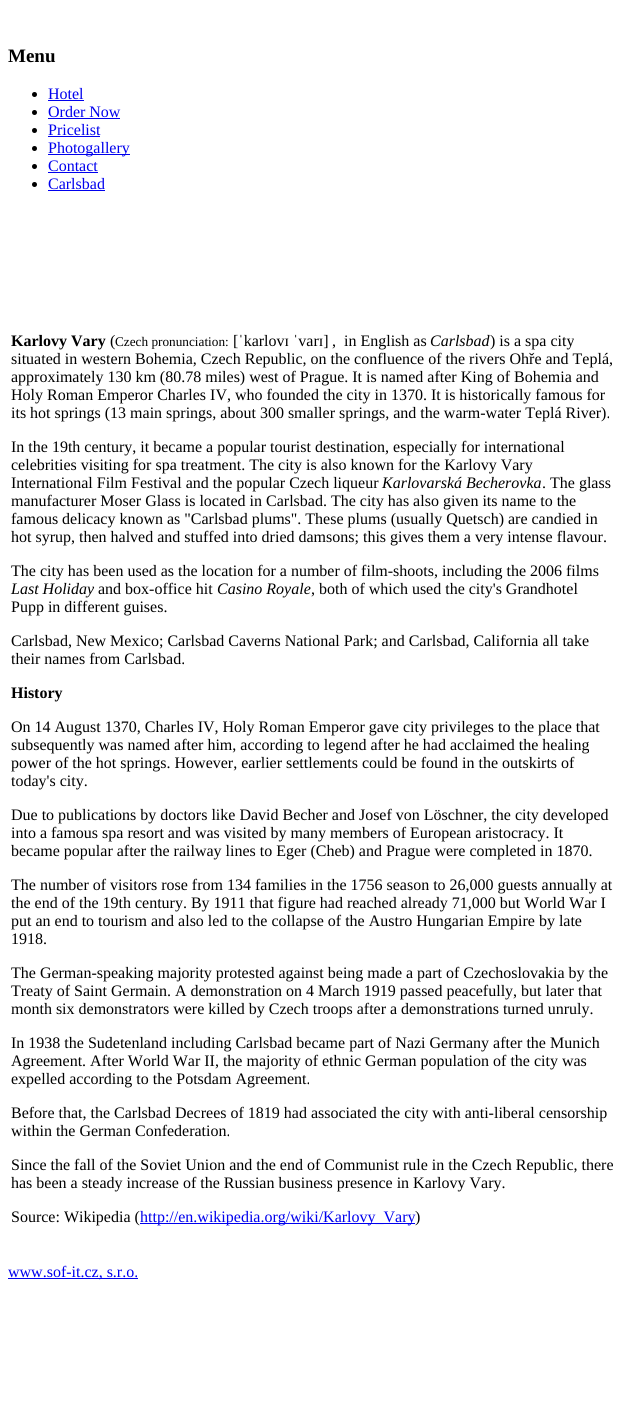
import math
import cairo


def use_color(cr, r, g, b):
  cr.set_source_rgb(r / 255, g / 255, b / 255)

def text(cr, x, y, s, family, size, color, bold=False, italic=False):
  cr.select_font_face(family, cairo.FONT_SLANT_ITALIC if italic else cairo.FONT_SLANT_NORMAL, cairo.FONT_WEIGHT_BOLD if bold else cairo.FONT_WEIGHT_NORMAL)
  cr.set_font_size(size)
  use_color(cr, *color)
  cr.move_to(x, y)
  cr.show_text(s)

def box(cr, x, y, w, h, *color):
  use_color(cr, *color)
  cr.rectangle(x, y, w, h)
  cr.fill()

def draw(cr):
  use_color(cr, 255, 255, 255)
  cr.paint()
  use_color(cr, 0, 0, 0)
  cr.arc(34.5, 94.5, 2.5, 0, 2 * math.pi)
  cr.fill()
  box(cr, 48, 100, 36, 1, 0, 0, 238)
  use_color(cr, 0, 0, 0)
  cr.arc(34.5, 112.5, 2.5, 0, 2 * math.pi)
  cr.fill()
  box(cr, 48, 118, 72, 1, 0, 0, 238)
  use_color(cr, 0, 0, 0)
  cr.arc(34.5, 130.5, 2.5, 0, 2 * math.pi)
  cr.fill()
  box(cr, 48, 136, 52, 1, 0, 0, 238)
  use_color(cr, 0, 0, 0)
  cr.arc(34.5, 148.5, 2.5, 0, 2 * math.pi)
  cr.fill()
  box(cr, 48, 154, 82, 1, 0, 0, 238)
  use_color(cr, 0, 0, 0)
  cr.arc(34.5, 166.5, 2.5, 0, 2 * math.pi)
  cr.fill()
  box(cr, 48, 172, 50, 1, 0, 0, 238)
  use_color(cr, 0, 0, 0)
  cr.arc(34.5, 184.5, 2.5, 0, 2 * math.pi)
  cr.fill()
  box(cr, 48, 190, 57, 1, 0, 0, 238)
  box(cr, 140, 1223, 275, 1, 0, 0, 238)
  box(cr, 8, 1278, 130, 1, 0, 0, 238)
  text(cr, 8, 62, "Menu", "Liberation Serif", 19, (0, 0, 0), bold=True)
  text(cr, 48, 99, "Hotel", "Liberation Serif", 16, (0, 0, 238))
  text(cr, 48, 117, "Order Now", "Liberation Serif", 16, (0, 0, 238))
  text(cr, 48, 135, "Pricelist", "Liberation Serif", 16, (0, 0, 238))
  text(cr, 48, 153, "Photogallery", "Liberation Serif", 16, (0, 0, 238))
  text(cr, 48, 171, "Contact", "Liberation Serif", 16, (0, 0, 238))
  text(cr, 48, 189, "Carlsbad", "Liberation Serif", 16, (0, 0, 238))
  text(cr, 11, 346, "Karlovy Vary", "Liberation Serif", 16, (0, 0, 0), bold=True)
  text(cr, 110, 346, "(", "Liberation Serif", 16, (0, 0, 0))
  text(cr, 115, 346, "Czech pronunciation:", "Liberation Serif", 13.25, (0, 0, 0))
  text(cr, 233, 346, "[ˈkarlovɪ ˈvarɪ]", "Liberation Serif", 16, (0, 0, 0))
  text(cr, 332, 346, ",  in English as", "Liberation Serif", 16, (0, 0, 0))
  text(cr, 430, 346, "Carlsbad", "Liberation Serif", 16, (0, 0, 0), italic=True)
  text(cr, 490, 346, ") is a spa city", "Liberation Serif", 16, (0, 0, 0))
  text(cr, 11, 364, "situated in western Bohemia, Czech Republic, on the confluence of the rivers Ohře and Teplá,", "Liberation Serif", 16, (0, 0, 0))
  text(cr, 11, 382, "approximately 130 km (80.78 miles) west of Prague. It is named after King of Bohemia and", "Liberation Serif", 16, (0, 0, 0))
  text(cr, 11, 400, "Holy Roman Emperor Charles IV, who founded the city in 1370. It is historically famous for", "Liberation Serif", 16, (0, 0, 0))
  text(cr, 11, 418, "its hot springs (13 main springs, about 300 smaller springs, and the warm-water Teplá River).", "Liberation Serif", 16, (0, 0, 0))
  text(cr, 11, 452, "In the 19th century, it became a popular tourist destination, especially for international", "Liberation Serif", 16, (0, 0, 0))
  text(cr, 11, 470, "celebrities visiting for spa treatment. The city is also known for the Karlovy Vary", "Liberation Serif", 16, (0, 0, 0))
  text(cr, 11, 488, "International Film Festival and the popular Czech liqueur", "Liberation Serif", 16, (0, 0, 0))
  text(cr, 382, 488, "Karlovarská Becherovka", "Liberation Serif", 16, (0, 0, 0), italic=True)
  text(cr, 542, 488, ". The glass", "Liberation Serif", 16, (0, 0, 0))
  text(cr, 11, 506, "manufacturer Moser Glass is located in Carlsbad. The city has also given its name to the", "Liberation Serif", 16, (0, 0, 0))
  text(cr, 11, 524, "famous delicacy known as \"Carlsbad plums\". These plums (usually Quetsch) are candied in", "Liberation Serif", 16, (0, 0, 0))
  text(cr, 11, 542, "hot syrup, then halved and stuffed into dried damsons; this gives them a very intense flavour.", "Liberation Serif", 16, (0, 0, 0))
  text(cr, 11, 576, "The city has been used as the location for a number of film-shoots, including the 2006 films", "Liberation Serif", 16, (0, 0, 0))
  text(cr, 11, 594, "Last Holiday", "Liberation Serif", 16, (0, 0, 0), italic=True)
  text(cr, 98, 594, "and box-office hit", "Liberation Serif", 16, (0, 0, 0))
  text(cr, 217, 594, "Casino Royale", "Liberation Serif", 16, (0, 0, 0), italic=True)
  text(cr, 311, 594, ", both of which used the city's Grandhotel", "Liberation Serif", 16, (0, 0, 0))
  text(cr, 11, 612, "Pupp in different guises.", "Liberation Serif", 16, (0, 0, 0))
  text(cr, 11, 646, "Carlsbad, New Mexico; Carlsbad Caverns National Park; and Carlsbad, California all take", "Liberation Serif", 16, (0, 0, 0))
  text(cr, 11, 664, "their names from Carlsbad.", "Liberation Serif", 16, (0, 0, 0))
  text(cr, 11, 698, "History", "Liberation Serif", 16, (0, 0, 0), bold=True)
  text(cr, 11, 732, "On 14 August 1370, Charles IV, Holy Roman Emperor gave city privileges to the place that", "Liberation Serif", 16, (0, 0, 0))
  text(cr, 11, 750, "subsequently was named after him, according to legend after he had acclaimed the healing", "Liberation Serif", 16, (0, 0, 0))
  text(cr, 11, 768, "power of the hot springs. However, earlier settlements could be found in the outskirts of", "Liberation Serif", 16, (0, 0, 0))
  text(cr, 11, 786, "today's city.", "Liberation Serif", 16, (0, 0, 0))
  text(cr, 11, 820, "Due to publications by doctors like David Becher and Josef von Löschner, the city developed", "Liberation Serif", 16, (0, 0, 0))
  text(cr, 11, 838, "into a famous spa resort and was visited by many members of European aristocracy. It", "Liberation Serif", 16, (0, 0, 0))
  text(cr, 11, 856, "became popular after the railway lines to Eger (Cheb) and Prague were completed in 1870.", "Liberation Serif", 16, (0, 0, 0))
  text(cr, 11, 890, "The number of visitors rose from 134 families in the 1756 season to 26,000 guests annually at", "Liberation Serif", 16, (0, 0, 0))
  text(cr, 11, 908, "the end of the 19th century. By 1911 that figure had reached already 71,000 but World War I", "Liberation Serif", 16, (0, 0, 0))
  text(cr, 11, 926, "put an end to tourism and also led to the collapse of the Austro Hungarian Empire by late", "Liberation Serif", 16, (0, 0, 0))
  text(cr, 11, 944, "1918.", "Liberation Serif", 16, (0, 0, 0))
  text(cr, 11, 978, "The German-speaking majority protested against being made a part of Czechoslovakia by the", "Liberation Serif", 16, (0, 0, 0))
  text(cr, 11, 996, "Treaty of Saint Germain. A demonstration on 4 March 1919 passed peacefully, but later that", "Liberation Serif", 16, (0, 0, 0))
  text(cr, 11, 1014, "month six demonstrators were killed by Czech troops after a demonstrations turned unruly.", "Liberation Serif", 16, (0, 0, 0))
  text(cr, 11, 1048, "In 1938 the Sudetenland including Carlsbad became part of Nazi Germany after the Munich", "Liberation Serif", 16, (0, 0, 0))
  text(cr, 11, 1066, "Agreement. After World War II, the majority of ethnic German population of the city was", "Liberation Serif", 16, (0, 0, 0))
  text(cr, 11, 1084, "expelled according to the Potsdam Agreement.", "Liberation Serif", 16, (0, 0, 0))
  text(cr, 11, 1118, "Before that, the Carlsbad Decrees of 1819 had associated the city with anti-liberal censorship", "Liberation Serif", 16, (0, 0, 0))
  text(cr, 11, 1136, "within the German Confederation.", "Liberation Serif", 16, (0, 0, 0))
  text(cr, 11, 1170, "Since the fall of the Soviet Union and the end of Communist rule in the Czech Republic, there", "Liberation Serif", 16, (0, 0, 0))
  text(cr, 11, 1188, "has been a steady increase of the Russian business presence in Karlovy Vary.", "Liberation Serif", 16, (0, 0, 0))
  text(cr, 11, 1222, "Source: Wikipedia (", "Liberation Serif", 16, (0, 0, 0))
  text(cr, 140, 1222, "http://en.wikipedia.org/wiki/Karlovy_Vary", "Liberation Serif", 16, (0, 0, 238))
  text(cr, 415, 1222, ")", "Liberation Serif", 16, (0, 0, 0))
  text(cr, 8, 1277, "www.sof-it.cz, s.r.o.", "Liberation Serif", 16, (0, 0, 238))


surface = cairo.ImageSurface(cairo.FORMAT_RGB24, 625, 1427)
cr = cairo.Context(surface)
options = cairo.FontOptions()
options.set_hint_metrics(cairo.HINT_METRICS_OFF)
options.set_hint_style(cairo.HINT_STYLE_NONE)
cr.set_font_options(options)
cr.set_miter_limit(4)
draw(cr)
surface.write_to_png("out.png")
